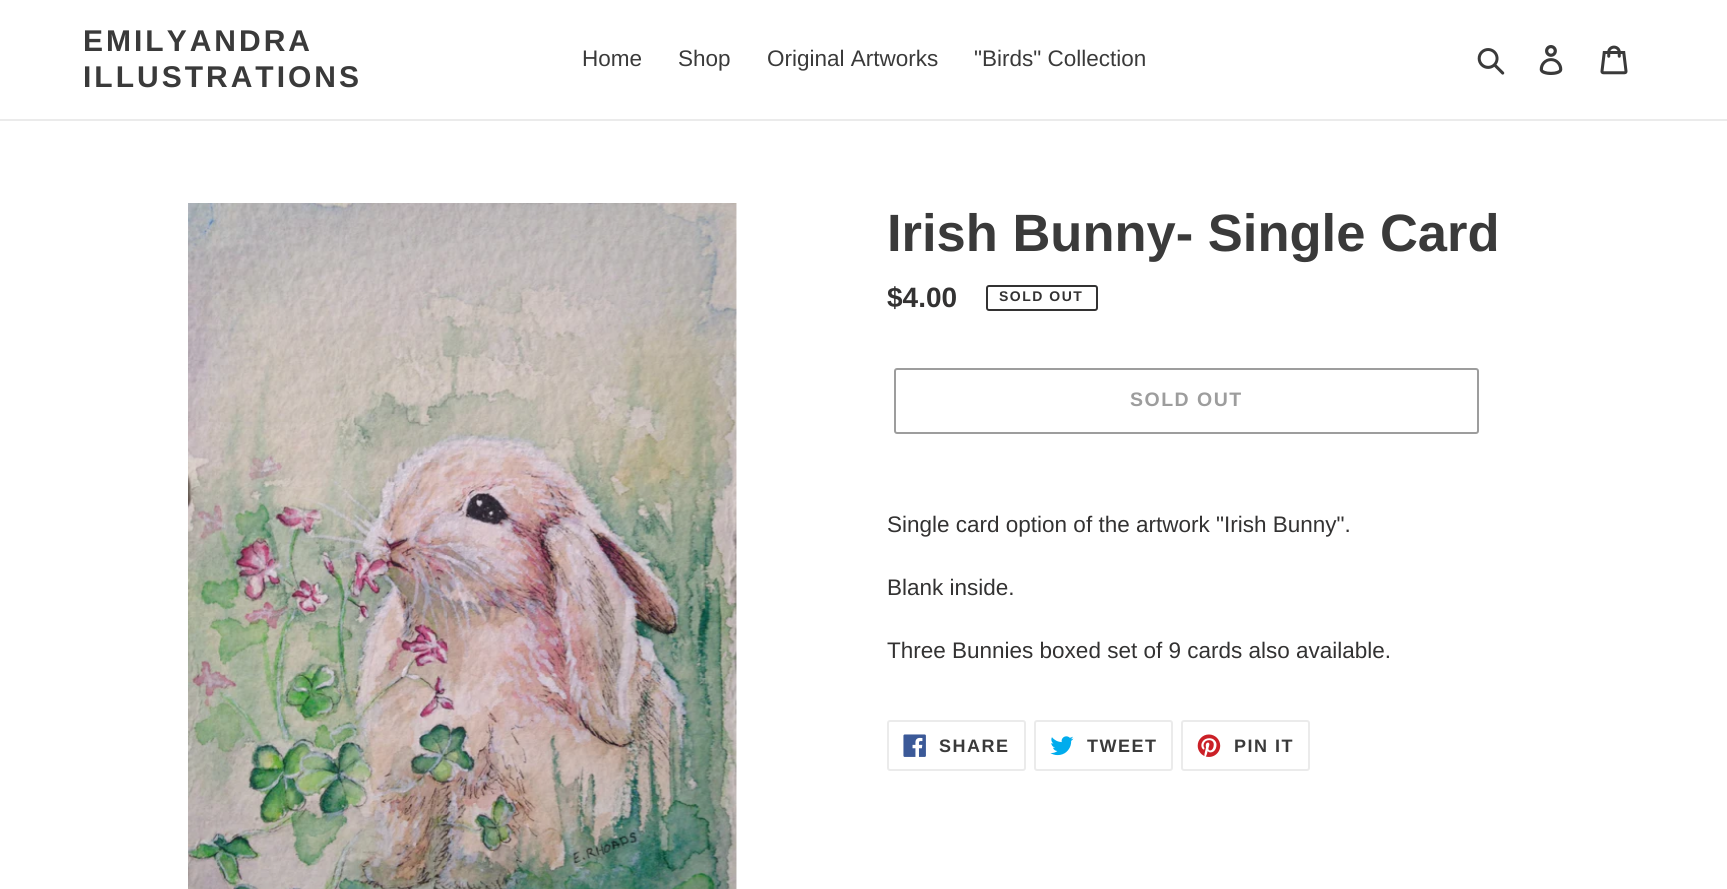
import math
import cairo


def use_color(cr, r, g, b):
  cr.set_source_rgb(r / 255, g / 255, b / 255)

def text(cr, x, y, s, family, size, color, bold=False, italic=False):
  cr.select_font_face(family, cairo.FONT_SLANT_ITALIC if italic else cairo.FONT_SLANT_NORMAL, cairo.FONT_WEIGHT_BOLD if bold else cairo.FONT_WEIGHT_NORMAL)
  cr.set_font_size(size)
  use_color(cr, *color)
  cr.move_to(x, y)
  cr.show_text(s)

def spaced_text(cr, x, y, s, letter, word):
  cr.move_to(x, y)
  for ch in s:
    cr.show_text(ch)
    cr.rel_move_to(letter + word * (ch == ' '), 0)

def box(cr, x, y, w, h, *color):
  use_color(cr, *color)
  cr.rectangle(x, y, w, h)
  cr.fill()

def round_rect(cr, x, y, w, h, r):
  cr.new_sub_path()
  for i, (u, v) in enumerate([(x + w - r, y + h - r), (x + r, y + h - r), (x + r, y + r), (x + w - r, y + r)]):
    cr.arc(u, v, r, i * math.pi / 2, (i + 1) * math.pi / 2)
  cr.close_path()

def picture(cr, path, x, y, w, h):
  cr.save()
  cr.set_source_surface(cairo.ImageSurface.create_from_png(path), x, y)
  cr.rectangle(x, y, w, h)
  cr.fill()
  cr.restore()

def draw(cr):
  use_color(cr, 255, 255, 255)
  cr.paint()
  box(cr, 0, 119, 1727, 2, 235, 235, 235)
  picture(cr, "img_01.png", 1477, 48, 28, 27)
  picture(cr, "img_02.png", 1539, 45, 24, 30)
  picture(cr, "img_03.png", 1600, 45, 28, 30)
  picture(cr, "img_04.png", 188, 203, 549, 686)
  round_rect(cr, 987, 286, 110, 24, 2)
  use_color(cr, 51, 50, 50)
  cr.stroke()
  round_rect(cr, 895, 369, 583, 64, 2)
  use_color(cr, 157, 157, 157)
  cr.stroke()
  round_rect(cr, 888, 721, 137, 49, 2)
  use_color(cr, 235, 235, 235)
  cr.stroke()
  picture(cr, "img_05.png", 903, 734, 23, 23)
  round_rect(cr, 1035, 721, 137, 49, 2)
  cr.stroke()
  picture(cr, "img_06.png", 1050, 736, 24, 20)
  round_rect(cr, 1182, 721, 127, 49, 2)
  cr.stroke()
  picture(cr, "img_07.png", 1197, 734, 24, 23)
  cr.select_font_face("Liberation Sans", cairo.FONT_SLANT_NORMAL, cairo.FONT_WEIGHT_BOLD)
  cr.set_font_size(30)
  use_color(cr, 58, 58, 58)
  spaced_text(cr, 83, 51, "EMILYANDRA", 3, 0)
  spaced_text(cr, 83, 87, "ILLUSTRATIONS", 3, 0)
  text(cr, 582, 66, "Home", "Liberation Sans", 22.5, (58, 58, 58))
  text(cr, 678, 66, "Shop", "Liberation Sans", 22.5, (58, 58, 58))
  text(cr, 767, 66, "Original Artworks", "Liberation Sans", 22.5, (58, 58, 58))
  text(cr, 974, 66, "\"Birds\" Collection", "Liberation Sans", 22.5, (58, 58, 58))
  text(cr, 887, 251, "Irish Bunny- Single Card", "Liberation Sans", 52.5, (58, 58, 58), bold=True)
  text(cr, 887, 307, "$4.00", "Liberation Sans", 28, (51, 50, 50), bold=True)
  cr.set_font_size(14)
  spaced_text(cr, 999, 301, "SOLD OUT", 1.5, 0)
  cr.set_font_size(19.5)
  use_color(cr, 157, 157, 157)
  spaced_text(cr, 1130, 406, "SOLD OUT", 1.5, 0)
  text(cr, 887, 532, "Single card option of the artwork \"Irish Bunny\".", "Liberation Sans", 22.5, (51, 50, 50))
  text(cr, 887, 595, "Blank inside.", "Liberation Sans", 22.5, (51, 50, 50))
  text(cr, 887, 658, "Three Bunnies boxed set of 9 cards also available.", "Liberation Sans", 22.5, (51, 50, 50))
  cr.select_font_face("Liberation Sans", cairo.FONT_SLANT_NORMAL, cairo.FONT_WEIGHT_BOLD)
  cr.set_font_size(18)
  use_color(cr, 58, 58, 58)
  spaced_text(cr, 939, 752, "SHARE", 1.5, 0)
  spaced_text(cr, 1087, 752, "TWEET", 1.5, 0)
  spaced_text(cr, 1234, 752, "PIN IT", 1.5, 0)


surface = cairo.ImageSurface(cairo.FORMAT_RGB24, 1727, 889)
cr = cairo.Context(surface)
options = cairo.FontOptions()
options.set_hint_metrics(cairo.HINT_METRICS_OFF)
options.set_hint_style(cairo.HINT_STYLE_NONE)
cr.set_font_options(options)
cr.set_miter_limit(4)
draw(cr)
surface.write_to_png("out.png")
